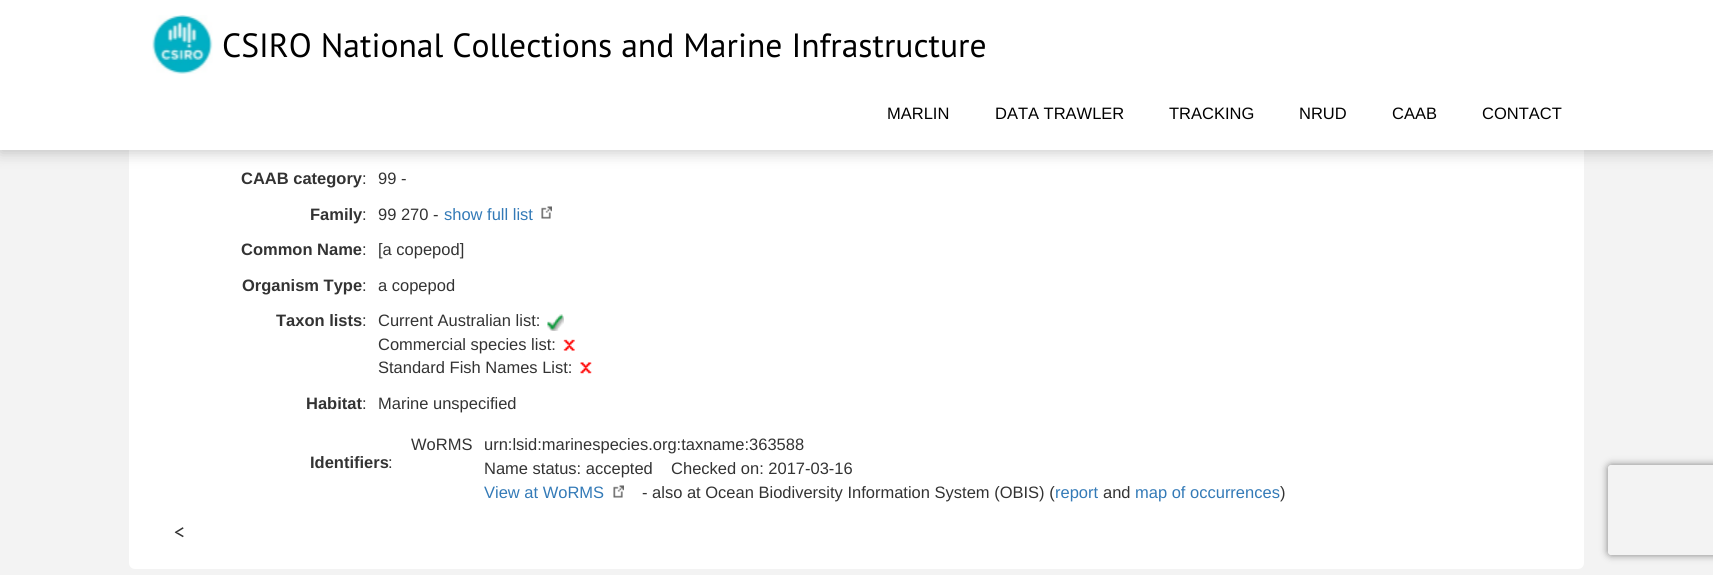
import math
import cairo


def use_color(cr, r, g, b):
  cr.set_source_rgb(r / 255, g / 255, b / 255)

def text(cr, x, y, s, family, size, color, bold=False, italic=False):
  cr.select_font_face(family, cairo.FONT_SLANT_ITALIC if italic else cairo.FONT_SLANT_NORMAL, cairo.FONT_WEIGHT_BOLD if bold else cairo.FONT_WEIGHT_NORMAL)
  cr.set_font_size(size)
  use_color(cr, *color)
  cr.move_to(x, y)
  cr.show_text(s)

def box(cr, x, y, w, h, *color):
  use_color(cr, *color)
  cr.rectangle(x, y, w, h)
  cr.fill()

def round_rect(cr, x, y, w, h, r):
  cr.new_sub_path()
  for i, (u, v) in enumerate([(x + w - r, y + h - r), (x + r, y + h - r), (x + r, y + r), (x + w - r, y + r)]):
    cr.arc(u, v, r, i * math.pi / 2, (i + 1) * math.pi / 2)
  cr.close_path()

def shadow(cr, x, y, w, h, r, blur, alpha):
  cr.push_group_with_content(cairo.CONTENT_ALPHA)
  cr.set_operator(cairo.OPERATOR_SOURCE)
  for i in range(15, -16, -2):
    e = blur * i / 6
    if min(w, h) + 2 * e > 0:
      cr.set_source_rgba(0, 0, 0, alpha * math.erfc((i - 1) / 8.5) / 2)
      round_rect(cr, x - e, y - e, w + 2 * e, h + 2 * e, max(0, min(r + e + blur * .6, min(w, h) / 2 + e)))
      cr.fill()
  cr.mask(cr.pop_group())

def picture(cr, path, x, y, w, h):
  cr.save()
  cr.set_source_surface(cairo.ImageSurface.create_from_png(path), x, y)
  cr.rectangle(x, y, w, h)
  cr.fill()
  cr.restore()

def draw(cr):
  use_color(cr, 243, 243, 243)
  cr.paint()
  use_color(cr, 255, 255, 255)
  round_rect(cr, 129, -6, 1455, 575, 6)
  cr.fill()
  use_color(cr, 0, 0, 0)
  shadow(cr, 0, 3, 1713, 150, 0, 7.5, 0.2)
  box(cr, 0, 0, 1713, 150, 255, 255, 255)
  picture(cr, "img_01.png", 152, 15, 61, 59)
  picture(cr, "img_02.png", 541, 206, 11, 13)
  picture(cr, "img_03.png", 547, 314, 17, 17)
  picture(cr, "img_04.png", 563, 339, 12, 12)
  picture(cr, "img_05.png", 580, 362, 12, 12)
  picture(cr, "img_02.png", 613, 485, 11, 13)
  cr.save()
  cr.set_fill_rule(cairo.FILL_RULE_EVEN_ODD)
  cr.new_path()
  cr.move_to(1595, 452)
  cr.line_to(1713, 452)
  cr.line_to(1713, 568)
  cr.line_to(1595, 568)
  cr.close_path()
  cr.move_to(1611, 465)
  cr.line_to(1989, 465)
  cr.curve_to(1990.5, 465, 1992, 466.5, 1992, 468)
  cr.line_to(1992, 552)
  cr.curve_to(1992, 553.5, 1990.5, 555, 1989, 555)
  cr.line_to(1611, 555)
  cr.curve_to(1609.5, 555, 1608, 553.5, 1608, 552)
  cr.line_to(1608, 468)
  cr.curve_to(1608, 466.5, 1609.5, 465, 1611, 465)
  cr.close_path()
  cr.clip()
  use_color(cr, 128, 128, 128)
  shadow(cr, 1608, 465, 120, 90, 3, 4, 1)
  cr.restore()
  text(cr, 222, 57, "CSIRO National Collections and Marine Infrastructure", "PT Sans", 33.6, (0, 0, 0))
  text(cr, 887, 119, "MARLIN", "Liberation Sans", 16.5, (0, 0, 0))
  text(cr, 995, 119, "DATA TRAWLER", "Liberation Sans", 16.5, (0, 0, 0))
  text(cr, 1169, 119, "TRACKING", "Liberation Sans", 16.5, (0, 0, 0))
  text(cr, 1299, 119, "NRUD", "Liberation Sans", 16.5, (0, 0, 0))
  text(cr, 1392, 119, "CAAB", "Liberation Sans", 16.5, (0, 0, 0))
  text(cr, 1482, 119, "CONTACT", "Liberation Sans", 16.5, (0, 0, 0))
  text(cr, 241, 184, "CAAB category", "Liberation Sans", 16.5, (51, 51, 51), bold=True)
  text(cr, 362, 184, ":", "Liberation Sans", 16.5, (51, 51, 51))
  text(cr, 378, 184, "99 -", "Liberation Sans", 16.5, (51, 51, 51))
  text(cr, 310, 220, "Family", "Liberation Sans", 16.5, (51, 51, 51), bold=True)
  text(cr, 362, 220, ":", "Liberation Sans", 16.5, (51, 51, 51))
  text(cr, 378, 220, "99 270 -", "Liberation Sans", 16.5, (51, 51, 51))
  text(cr, 444, 220, "show full list", "Liberation Sans", 16.5, (51, 122, 183))
  text(cr, 241, 255, "Common Name", "Liberation Sans", 16.5, (51, 51, 51), bold=True)
  text(cr, 362, 255, ":", "Liberation Sans", 16.5, (51, 51, 51))
  text(cr, 378, 255, "[a copepod]", "Liberation Sans", 16.5, (51, 51, 51))
  text(cr, 242, 291, "Organism Type", "Liberation Sans", 16.5, (51, 51, 51), bold=True)
  text(cr, 362, 291, ":", "Liberation Sans", 16.5, (51, 51, 51))
  text(cr, 378, 291, "a copepod", "Liberation Sans", 16.5, (51, 51, 51))
  text(cr, 276, 326, "Taxon lists", "Liberation Sans", 16.5, (51, 51, 51), bold=True)
  text(cr, 362, 326, ":", "Liberation Sans", 16.5, (51, 51, 51))
  text(cr, 378, 326, "Current Australian list:", "Liberation Sans", 16.5, (51, 51, 51))
  text(cr, 378, 350, "Commercial species list:", "Liberation Sans", 16.5, (51, 51, 51))
  text(cr, 378, 373, "Standard Fish Names List:", "Liberation Sans", 16.5, (51, 51, 51))
  text(cr, 306, 409, "Habitat", "Liberation Sans", 16.5, (51, 51, 51), bold=True)
  text(cr, 362, 409, ":", "Liberation Sans", 16.5, (51, 51, 51))
  text(cr, 378, 409, "Marine unspecified", "Liberation Sans", 16.5, (51, 51, 51))
  text(cr, 310, 468, "Identifiers", "Liberation Sans", 16.5, (51, 51, 51), bold=True)
  text(cr, 388, 468, ":", "Liberation Sans", 16.5, (51, 51, 51))
  text(cr, 411, 450, "WoRMS", "Liberation Sans", 16.5, (51, 51, 51))
  text(cr, 484, 450, "urn:lsid:marinespecies.org:taxname:363588", "Liberation Sans", 16.5, (51, 51, 51))
  text(cr, 484, 474, "Name status: accepted    Checked on: 2017-03-16", "Liberation Sans", 16.5, (51, 51, 51))
  text(cr, 484, 498, "View at WoRMS", "Liberation Sans", 16.5, (51, 122, 183))
  text(cr, 642, 498, "- also at Ocean Biodiversity Information System (OBIS) (", "Liberation Sans", 16.5, (51, 51, 51))
  text(cr, 1055, 498, "report", "Liberation Sans", 16.5, (51, 122, 183))
  text(cr, 1103, 498, "and", "Liberation Sans", 16.5, (51, 51, 51))
  text(cr, 1135, 498, "map of occurrences", "Liberation Sans", 16.5, (51, 122, 183))
  text(cr, 1280, 498, ")", "Liberation Sans", 16.5, (51, 51, 51))
  text(cr, 174, 539, "<", "PT Sans", 21, (51, 51, 51))


surface = cairo.ImageSurface(cairo.FORMAT_RGB24, 1713, 575)
cr = cairo.Context(surface)
options = cairo.FontOptions()
options.set_hint_metrics(cairo.HINT_METRICS_OFF)
options.set_hint_style(cairo.HINT_STYLE_NONE)
cr.set_font_options(options)
cr.set_miter_limit(4)
draw(cr)
surface.write_to_png("out.png")
